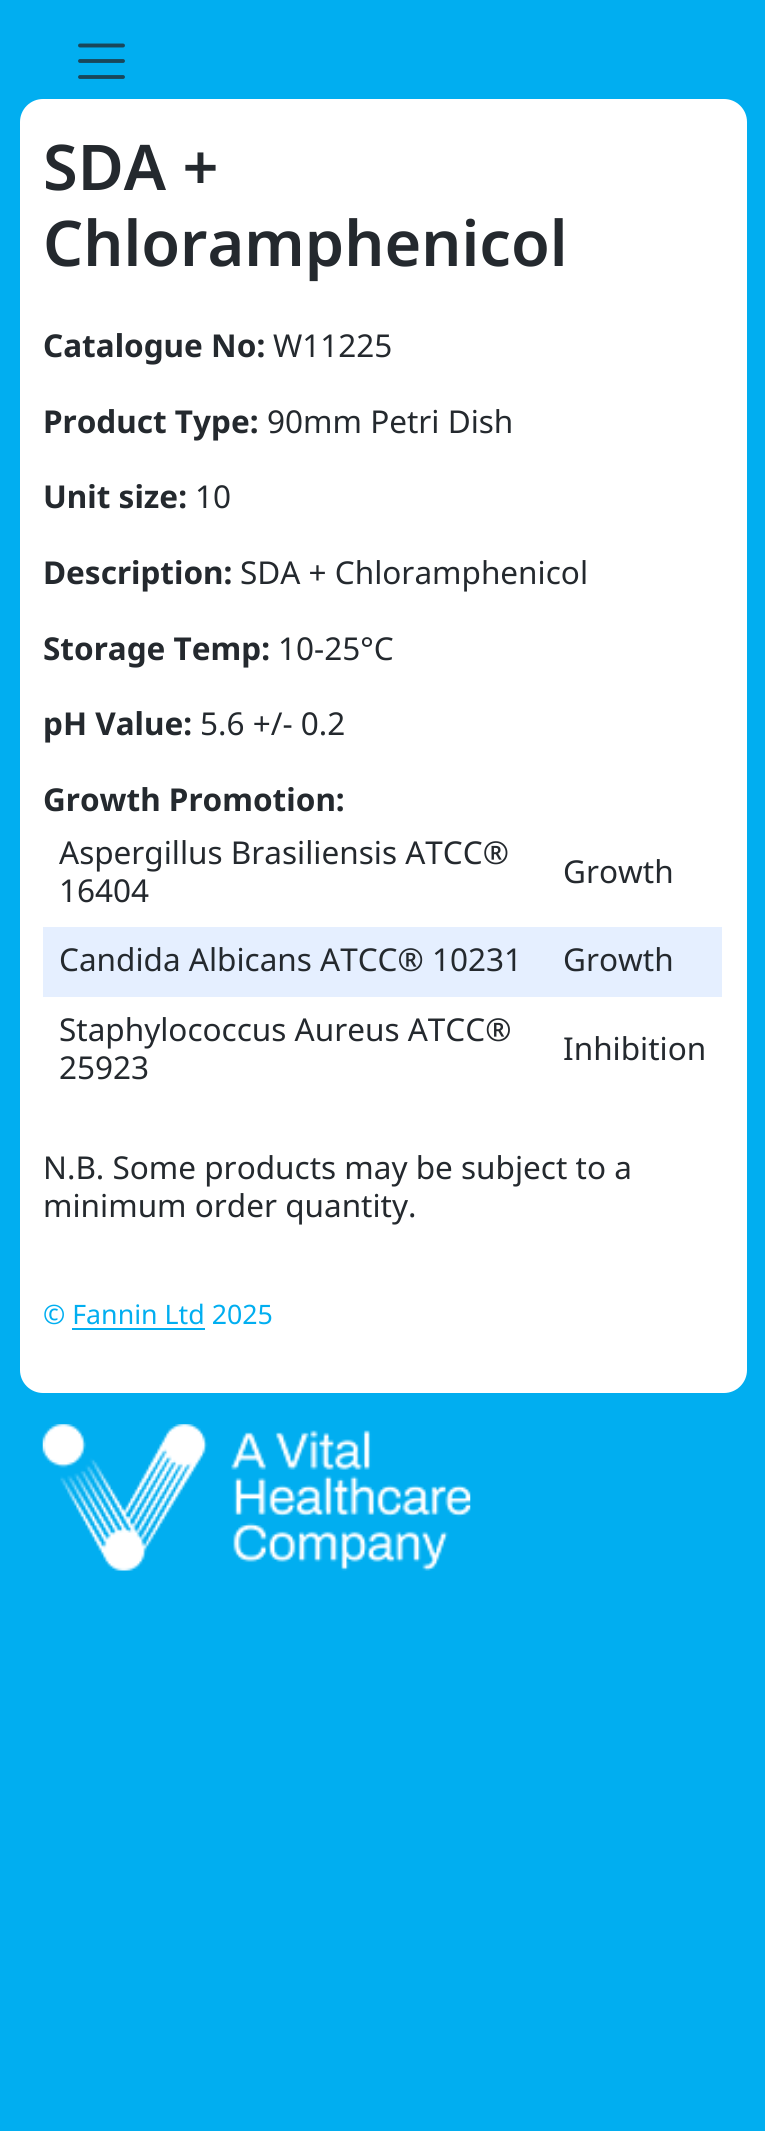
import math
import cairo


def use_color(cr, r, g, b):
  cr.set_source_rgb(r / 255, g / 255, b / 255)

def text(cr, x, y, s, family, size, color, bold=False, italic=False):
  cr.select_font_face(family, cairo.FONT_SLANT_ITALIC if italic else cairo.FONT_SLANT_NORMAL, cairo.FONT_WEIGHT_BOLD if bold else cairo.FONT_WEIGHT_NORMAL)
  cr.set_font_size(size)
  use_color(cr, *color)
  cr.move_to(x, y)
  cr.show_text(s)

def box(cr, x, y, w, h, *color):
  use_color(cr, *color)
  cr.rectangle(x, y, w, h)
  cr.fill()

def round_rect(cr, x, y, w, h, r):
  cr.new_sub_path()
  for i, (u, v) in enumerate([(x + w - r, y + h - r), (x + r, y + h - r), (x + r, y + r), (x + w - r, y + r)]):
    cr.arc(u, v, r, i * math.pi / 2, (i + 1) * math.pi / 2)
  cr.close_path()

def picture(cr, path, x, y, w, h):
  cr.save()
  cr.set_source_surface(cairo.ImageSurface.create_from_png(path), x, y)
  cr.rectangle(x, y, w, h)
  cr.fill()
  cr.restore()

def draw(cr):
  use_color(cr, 1, 174, 240)
  cr.paint()
  cr.new_path()
  cr.move_to(80, 45.5)
  cr.line_to(123, 45.5)
  cr.move_to(80, 61)
  cr.line_to(123, 61)
  cr.move_to(80, 77)
  cr.line_to(123, 77)
  use_color(cr, 25, 71, 91)
  cr.set_line_width(3.9)
  cr.set_line_cap(cairo.LINE_CAP_ROUND)
  cr.stroke()
  use_color(cr, 255, 255, 255)
  round_rect(cr, 20, 99, 727, 1294, 23)
  cr.fill()
  box(cr, 43, 927, 679, 70, 229, 239, 255)
  box(cr, 72, 1328, 133, 2, 1, 174, 240)
  picture(cr, "img_01.png", 42, 1424, 429, 147)
  text(cr, 43, 190, "SDA +", "Noto Sans SemiBold", 63, (36, 41, 46))
  text(cr, 43, 266, "Chloramphenicol", "Noto Sans SemiBold", 63, (36, 41, 46))
  text(cr, 43, 357, "Catalogue No:", "Noto Sans", 31.5, (36, 41, 46), bold=True)
  text(cr, 273, 357, "W11225", "Noto Sans", 31.5, (36, 41, 46))
  text(cr, 43, 433, "Product Type:", "Noto Sans", 31.5, (36, 41, 46), bold=True)
  text(cr, 267, 433, "90mm Petri Dish", "Noto Sans", 31.5, (36, 41, 46))
  text(cr, 43, 508, "Unit size:", "Noto Sans", 31.5, (36, 41, 46), bold=True)
  text(cr, 195, 508, "10", "Noto Sans", 31.5, (36, 41, 46))
  text(cr, 43, 584, "Description:", "Noto Sans", 31.5, (36, 41, 46), bold=True)
  text(cr, 240, 584, "SDA + Chloramphenicol", "Noto Sans", 31.5, (36, 41, 46))
  text(cr, 43, 660, "Storage Temp:", "Noto Sans", 31.5, (36, 41, 46), bold=True)
  text(cr, 278, 660, "10-25°C", "Noto Sans", 31.5, (36, 41, 46))
  text(cr, 43, 735, "pH Value:", "Noto Sans", 31.5, (36, 41, 46), bold=True)
  text(cr, 200, 735, "5.6 +/- 0.2", "Noto Sans", 31.5, (36, 41, 46))
  text(cr, 43, 811, "Growth Promotion:", "Noto Sans", 31.5, (36, 41, 46), bold=True)
  text(cr, 59, 864, "Aspergillus Brasiliensis ATCC®", "Noto Sans", 31.5, (36, 41, 46))
  text(cr, 59, 902, "16404", "Noto Sans", 31.5, (36, 41, 46))
  text(cr, 563, 883, "Growth", "Noto Sans", 31.5, (36, 41, 46))
  text(cr, 59, 971, "Candida Albicans ATCC® 10231", "Noto Sans", 31.5, (36, 41, 46))
  text(cr, 563, 971, "Growth", "Noto Sans", 31.5, (36, 41, 46))
  text(cr, 59, 1041, "Staphylococcus Aureus ATCC®", "Noto Sans", 31.5, (36, 41, 46))
  text(cr, 59, 1079, "25923", "Noto Sans", 31.5, (36, 41, 46))
  text(cr, 563, 1060, "Inhibition", "Noto Sans", 31.5, (36, 41, 46))
  text(cr, 43, 1179, "N.B. Some products may be subject to a", "Noto Sans", 31.5, (36, 41, 46))
  text(cr, 43, 1217, "minimum order quantity.", "Noto Sans", 31.5, (36, 41, 46))
  text(cr, 43, 1324, "© Fannin Ltd 2025", "Noto Sans", 26.75, (1, 174, 240))


surface = cairo.ImageSurface(cairo.FORMAT_RGB24, 765, 2131)
cr = cairo.Context(surface)
options = cairo.FontOptions()
options.set_hint_metrics(cairo.HINT_METRICS_OFF)
options.set_hint_style(cairo.HINT_STYLE_NONE)
cr.set_font_options(options)
cr.set_miter_limit(4)
draw(cr)
surface.write_to_png("out.png")
